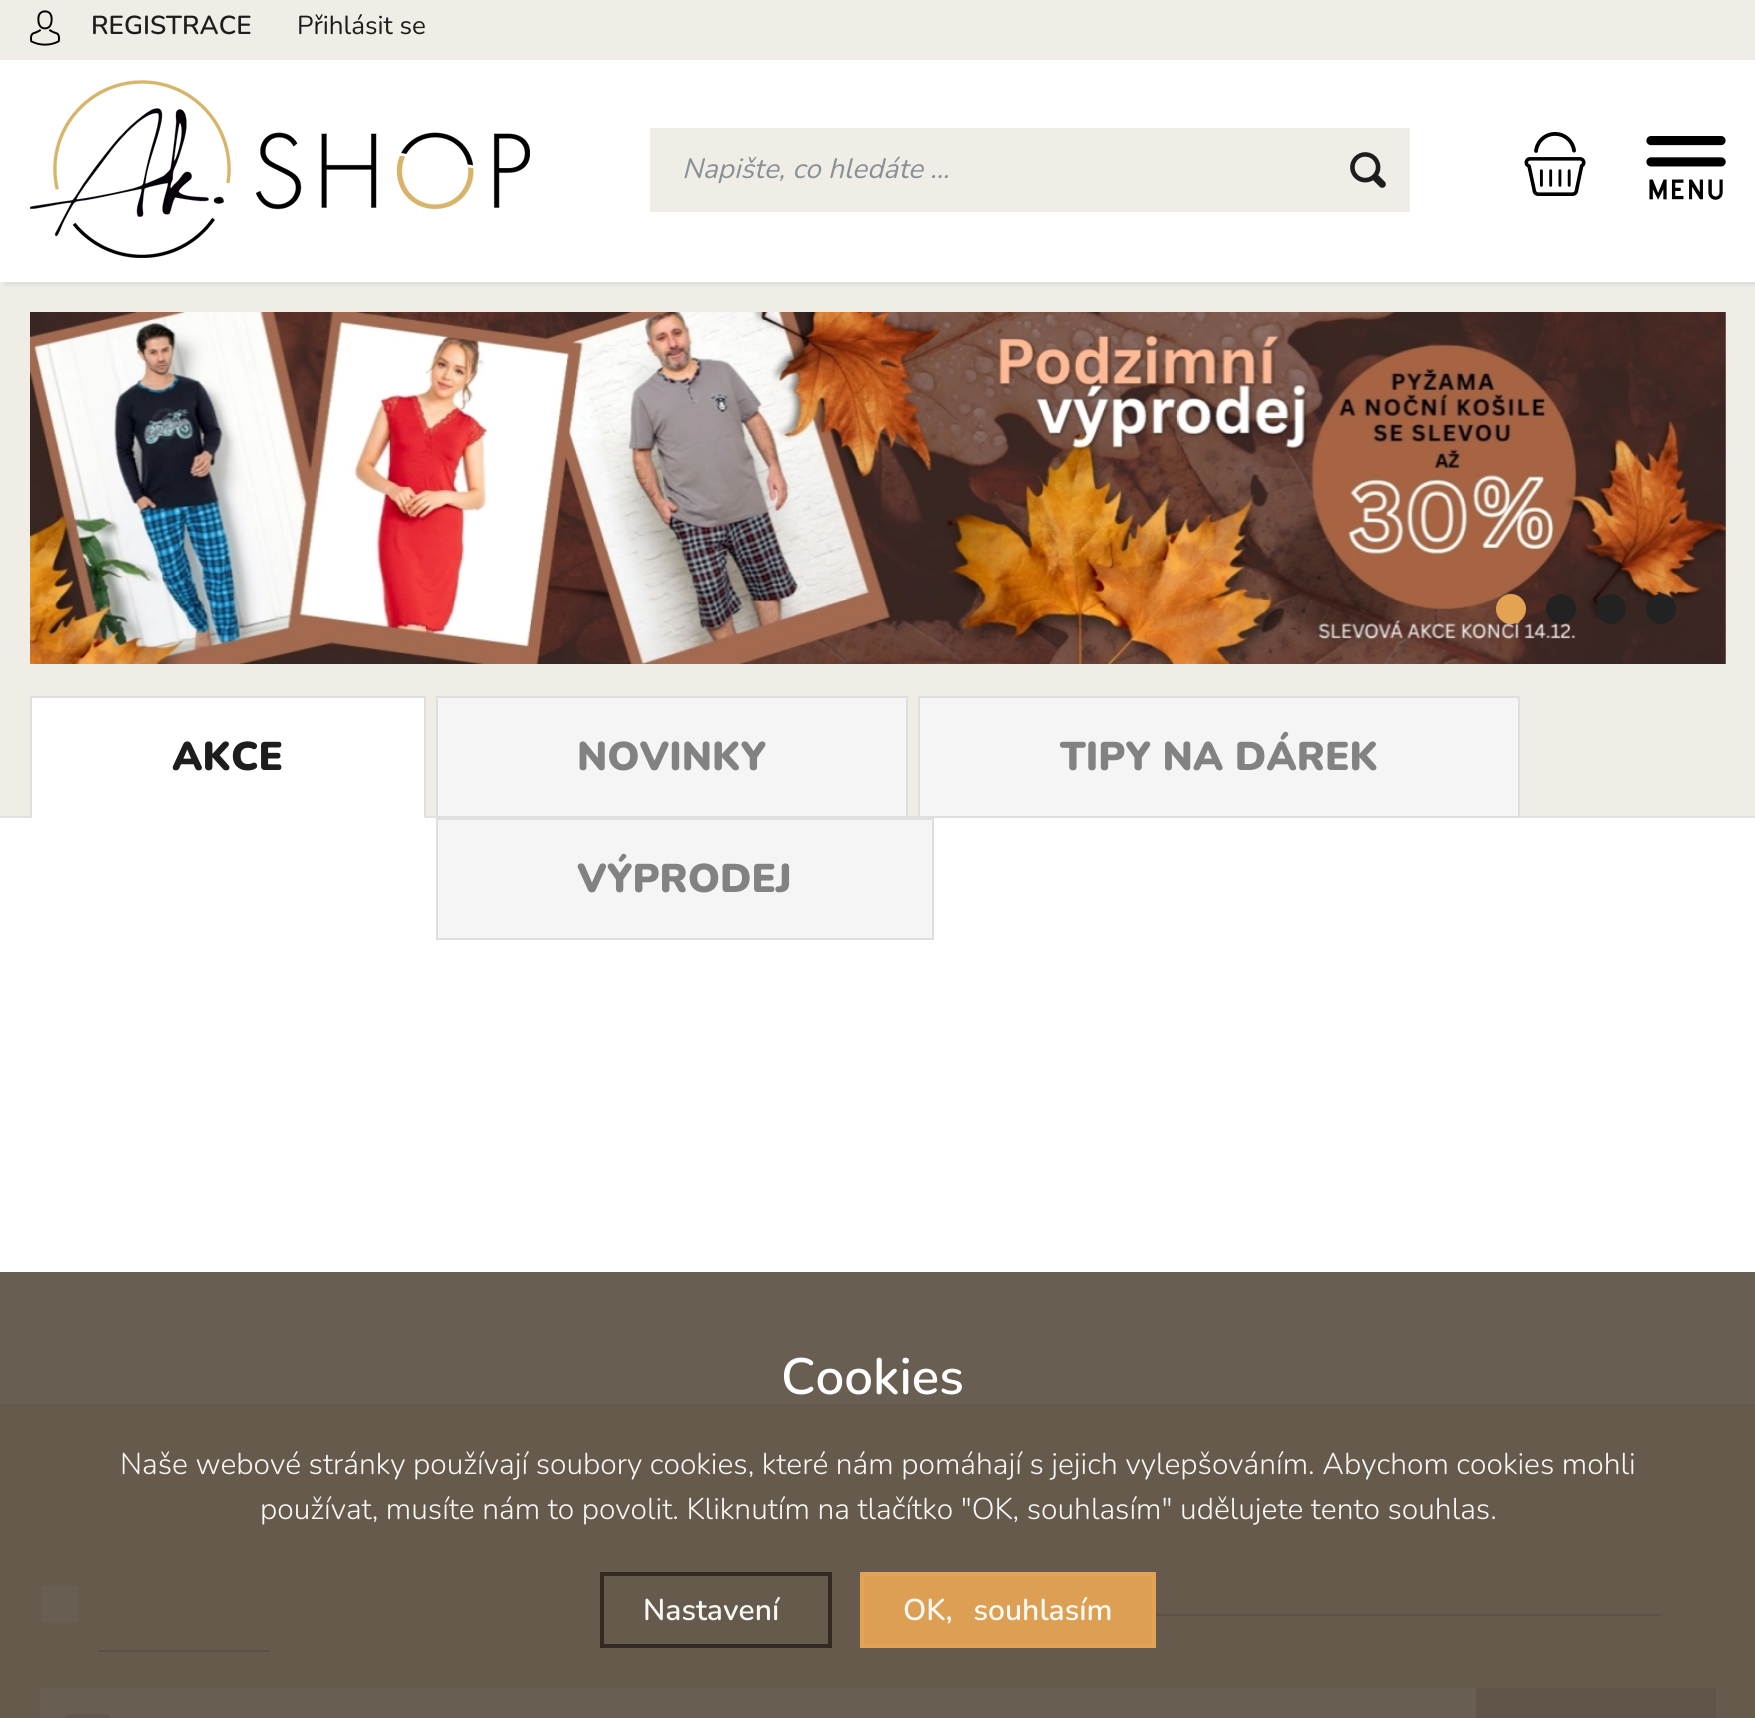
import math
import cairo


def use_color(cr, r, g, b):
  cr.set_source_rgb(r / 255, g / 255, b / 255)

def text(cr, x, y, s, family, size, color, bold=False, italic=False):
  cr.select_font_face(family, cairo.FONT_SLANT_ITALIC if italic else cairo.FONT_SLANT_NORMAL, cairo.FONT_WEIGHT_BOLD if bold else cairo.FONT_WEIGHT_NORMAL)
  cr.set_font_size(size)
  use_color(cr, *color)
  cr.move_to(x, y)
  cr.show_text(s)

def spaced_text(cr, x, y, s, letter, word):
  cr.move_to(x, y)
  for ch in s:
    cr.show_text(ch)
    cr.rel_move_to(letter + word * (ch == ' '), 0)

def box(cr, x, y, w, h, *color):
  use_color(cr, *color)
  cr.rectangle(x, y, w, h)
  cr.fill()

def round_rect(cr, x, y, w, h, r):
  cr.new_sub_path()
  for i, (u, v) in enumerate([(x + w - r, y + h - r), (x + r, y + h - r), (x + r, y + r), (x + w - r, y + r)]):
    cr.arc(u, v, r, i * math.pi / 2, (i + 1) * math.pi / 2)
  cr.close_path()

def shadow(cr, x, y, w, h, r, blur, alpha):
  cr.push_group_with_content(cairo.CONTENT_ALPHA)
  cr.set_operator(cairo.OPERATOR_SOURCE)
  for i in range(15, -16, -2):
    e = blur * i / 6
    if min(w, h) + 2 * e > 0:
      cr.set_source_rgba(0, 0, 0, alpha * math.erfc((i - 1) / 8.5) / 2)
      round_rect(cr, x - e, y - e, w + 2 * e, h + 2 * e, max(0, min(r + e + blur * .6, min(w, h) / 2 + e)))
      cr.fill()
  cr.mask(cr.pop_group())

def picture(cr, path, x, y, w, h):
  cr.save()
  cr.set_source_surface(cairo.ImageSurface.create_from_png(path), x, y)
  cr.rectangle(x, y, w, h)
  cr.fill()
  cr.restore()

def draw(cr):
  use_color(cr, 255, 255, 255)
  cr.paint()
  box(cr, 0, 1272, 1755, 132, 104, 94, 81)
  box(cr, 0, 282, 1755, 534, 239, 237, 229)
  cr.save()
  cr.rectangle(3, 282, 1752, 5)
  cr.clip()
  use_color(cr, 0, 74, 129)
  shadow(cr, 4, 4, 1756, 282, 0, 2, 0.08)
  cr.restore()
  box(cr, 0, 0, 1755, 60, 239, 237, 229)
  picture(cr, "img_01.png", 30, 10, 30, 36)
  picture(cr, "img_02.png", 30, 80, 500, 178)
  box(cr, 650, 128, 760, 84, 239, 237, 229)
  picture(cr, "img_03.png", 1350, 152, 36, 36)
  picture(cr, "img_04.png", 1524, 132, 62, 64)
  picture(cr, "img_05.png", 1646, 136, 80, 64)
  picture(cr, "img_06.png", 30, 312, 1696, 352)
  use_color(cr, 227, 163, 83)
  cr.arc(1511, 609, 15, 0, 2 * math.pi)
  cr.fill()
  use_color(cr, 34, 34, 34)
  cr.arc(1561, 609, 15, 0, 2 * math.pi)
  cr.fill()
  cr.arc(1611, 609, 15, 0, 2 * math.pi)
  cr.fill()
  cr.arc(1661, 609, 15, 0, 2 * math.pi)
  cr.fill()
  box(cr, 0, 816, 1755, 2, 225, 225, 225)
  box(cr, 32, 698, 392, 118, 255, 255, 255)
  box(cr, 30, 696, 396, 2, 223, 223, 223)
  cr.new_path()
  cr.move_to(426, 696)
  cr.line_to(426, 820)
  cr.line_to(424, 816)
  cr.line_to(424, 698)
  cr.close_path()
  cr.fill()
  use_color(cr, 255, 255, 255)
  cr.new_path()
  cr.move_to(426, 820)
  cr.line_to(30, 820)
  cr.line_to(32, 816)
  cr.line_to(424, 816)
  cr.close_path()
  cr.fill()
  use_color(cr, 223, 223, 223)
  cr.new_path()
  cr.move_to(30, 820)
  cr.line_to(30, 696)
  cr.line_to(32, 698)
  cr.line_to(32, 816)
  cr.close_path()
  cr.fill()
  use_color(cr, 245, 245, 245)
  cr.rectangle(437, 697, 470, 120)
  cr.fill_preserve()
  use_color(cr, 223, 223, 223)
  cr.stroke()
  use_color(cr, 245, 245, 245)
  cr.rectangle(919, 697, 600, 120)
  cr.fill_preserve()
  use_color(cr, 223, 223, 223)
  cr.stroke()
  use_color(cr, 245, 245, 245)
  cr.rectangle(437, 819, 496, 120)
  cr.fill_preserve()
  use_color(cr, 223, 223, 223)
  cr.stroke()
  box(cr, 0, 1404, 1755, 314, 102, 90, 76)
  box(cr, 42, 1586, 36, 36, 104, 94, 81)
  box(cr, 906, 1614, 754, 2, 91, 81, 68)
  box(cr, 98, 1650, 172, 2, 91, 81, 68)
  box(cr, 40, 1688, 1436, 30, 104, 94, 81)
  picture(cr, "img_07.png", 64, 1714, 46, 4)
  box(cr, 1476, 1688, 240, 30, 96, 85, 72)
  cr.rectangle(602, 1574, 228, 72)
  cr.set_source_rgba(0.188, 0.157, 0.122, 0.95)
  cr.set_line_width(4)
  cr.stroke()
  cr.set_source_rgba(0.89, 0.639, 0.325, 0.95)
  cr.rectangle(862, 1574, 292, 72)
  cr.fill_preserve()
  use_color(cr, 227, 163, 83)
  cr.stroke()
  text(cr, 91, 34, "REGISTRACE", "Nunito SemiBold", 26, (29, 29, 29))
  text(cr, 297, 34, "Přihlásit se", "Nunito", 26, (29, 29, 29))
  text(cr, 682, 178, "Napište, co hledáte ...", "Nunito", 28, (137, 144, 149), italic=True)
  text(cr, 172, 770, "AKCE", "Nunito Black", 40, (29, 29, 29))
  text(cr, 577, 770, "NOVINKY", "Nunito Black", 40, (130, 130, 130))
  text(cr, 1060, 770, "TIPY NA DÁREK", "Nunito Black", 40, (130, 130, 130))
  text(cr, 577, 892, "VÝPRODEJ", "Nunito Black", 40, (130, 130, 130))
  text(cr, 781, 1394, "Cookies", "Nunito SemiBold", 51, (255, 255, 255))
  text(cr, 120, 1474, "Naše webové stránky používají soubory cookies, které nám pomáhají s jejich vylepšováním. Abychom cookies mohli", "Nunito Light", 30, (247, 247, 246))
  text(cr, 260, 1519, "používat, musíte nám to povolit. Kliknutím na tlačítko \"OK, souhlasím\" udělujete tento souhlas.", "Nunito Light", 30, (247, 247, 246))
  text(cr, 643, 1620, "Nastavení", "Nunito SemiBold", 30, (247, 247, 246))
  use_color(cr, 253, 250, 246)
  spaced_text(cr, 903, 1620, "OK, souhlasím", 0, 13)


surface = cairo.ImageSurface(cairo.FORMAT_RGB24, 1755, 1718)
cr = cairo.Context(surface)
options = cairo.FontOptions()
options.set_hint_metrics(cairo.HINT_METRICS_OFF)
options.set_hint_style(cairo.HINT_STYLE_NONE)
cr.set_font_options(options)
cr.set_miter_limit(4)
draw(cr)
surface.write_to_png("out.png")
